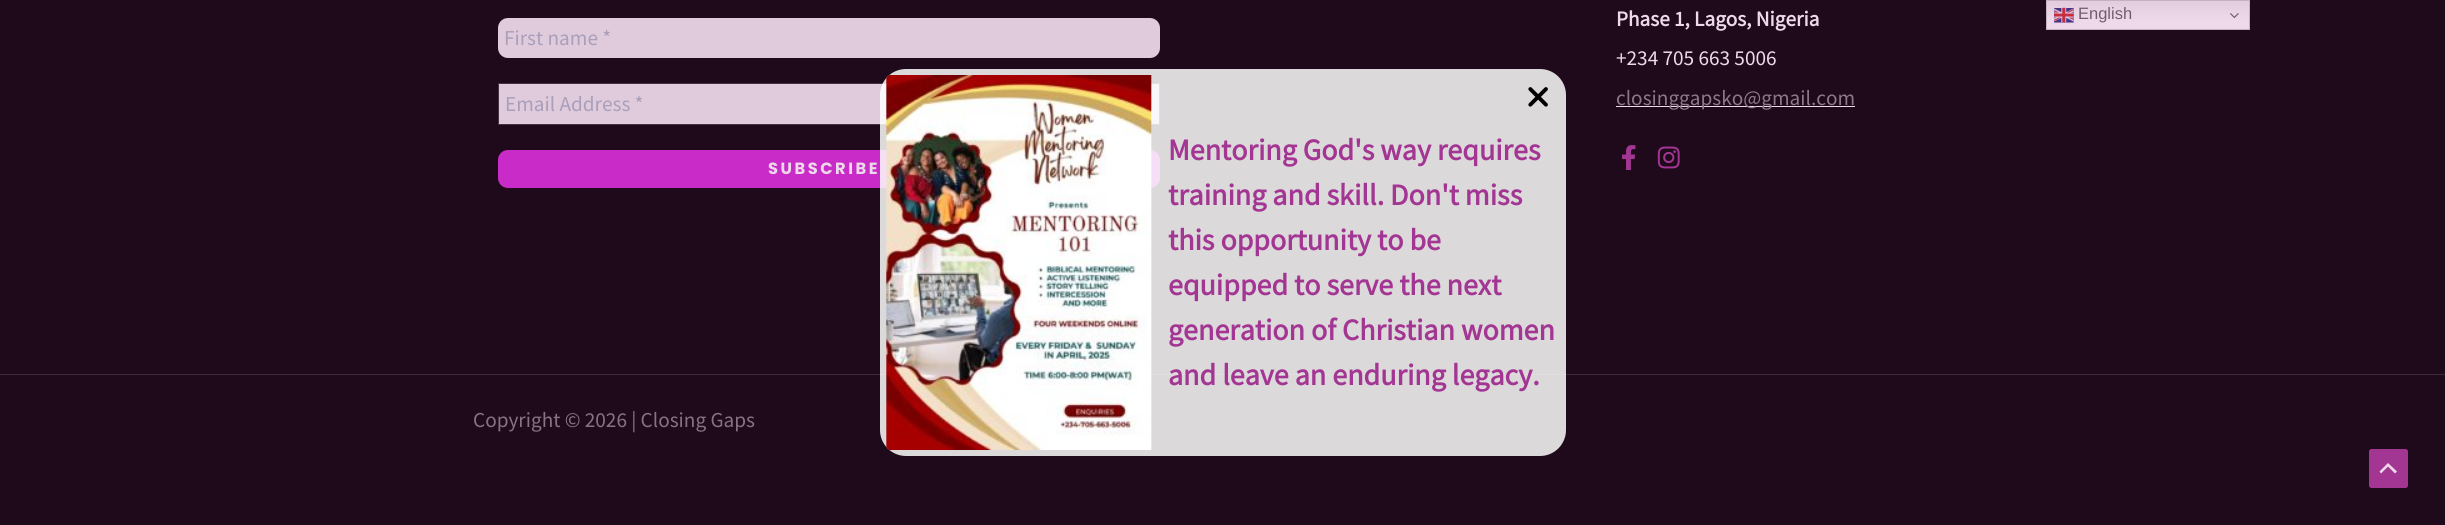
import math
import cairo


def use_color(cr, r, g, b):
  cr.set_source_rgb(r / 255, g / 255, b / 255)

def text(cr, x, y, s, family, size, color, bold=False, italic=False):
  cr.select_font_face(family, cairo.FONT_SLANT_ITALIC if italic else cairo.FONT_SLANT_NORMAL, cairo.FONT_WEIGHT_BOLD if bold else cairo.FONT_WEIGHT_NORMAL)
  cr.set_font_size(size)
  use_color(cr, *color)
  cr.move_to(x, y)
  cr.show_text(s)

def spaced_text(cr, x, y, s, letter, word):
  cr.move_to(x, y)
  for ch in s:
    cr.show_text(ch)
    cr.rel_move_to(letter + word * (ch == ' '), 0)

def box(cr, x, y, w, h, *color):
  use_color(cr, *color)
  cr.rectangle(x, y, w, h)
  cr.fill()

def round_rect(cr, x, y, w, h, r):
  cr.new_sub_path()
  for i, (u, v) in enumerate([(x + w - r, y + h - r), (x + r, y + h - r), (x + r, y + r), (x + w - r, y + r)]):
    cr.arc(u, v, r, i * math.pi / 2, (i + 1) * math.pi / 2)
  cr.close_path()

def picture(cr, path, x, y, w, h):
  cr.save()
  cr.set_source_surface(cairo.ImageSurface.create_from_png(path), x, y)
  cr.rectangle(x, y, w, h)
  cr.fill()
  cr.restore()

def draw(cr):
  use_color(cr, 31, 10, 28)
  cr.paint()
  use_color(cr, 224, 203, 221)
  round_rect(cr, 498, 18, 662, 40, 10)
  cr.fill()
  cr.rectangle(498.5, 83.5, 661, 41)
  cr.fill_preserve()
  use_color(cr, 71, 50, 68)
  cr.set_line_width(1)
  cr.stroke()
  use_color(cr, 201, 43, 201)
  round_rect(cr, 498, 150, 662, 38, 10)
  cr.fill()
  box(cr, 1616, 106, 239, 1, 238, 217, 234)
  picture(cr, "img_01.png", 1622, 145, 14, 25)
  picture(cr, "img_02.png", 1657, 146, 23, 23)
  box(cr, 0, 374, 2445, 1, 62, 41, 59)
  gradient = cairo.LinearGradient(2148, 0, 2148, 30)
  gradient.add_color_stop_rgba(0, 0.882, 0.8, 0.871, 1)
  gradient.add_color_stop_rgba(0.7, 0.933, 0.851, 0.918, 1)
  cr.set_source(gradient)
  cr.rectangle(2047, 1, 202, 28)
  cr.fill()
  cr.rectangle(2046.5, 0.5, 203, 29)
  use_color(cr, 196, 176, 193)
  cr.stroke()
  picture(cr, "img_03.png", 2054, 7, 20, 16)
  picture(cr, "img_04.png", 2230, 13, 9, 6)
  cr.set_source_rgba(1, 1, 1, 0.84)
  round_rect(cr, 880, 69, 686, 387, 26)
  cr.fill()
  picture(cr, "img_05.png", 1528, 87, 20, 20)
  picture(cr, "img_06.png", 886, 75, 266, 375)
  use_color(cr, 163, 54, 147)
  round_rect(cr, 2369, 449, 39, 39, 2.5)
  cr.fill()
  use_color(cr, 238, 217, 234)
  cr.new_path()
  cr.move_to(2397, 471.5)
  cr.line_to(2388, 463)
  cr.line_to(2379.5, 471.5)
  cr.line_to(2381, 473.5)
  cr.line_to(2388, 466.5)
  cr.line_to(2395, 473.5)
  cr.close_path()
  cr.fill()
  text(cr, 504, 45, "First name *", "Source Sans Pro", 21.25, (169, 159, 186))
  text(cr, 505, 111, "Email Address *", "Source Sans Pro", 21.25, (169, 159, 186))
  cr.select_font_face("Poppins", cairo.FONT_SLANT_NORMAL, cairo.FONT_WEIGHT_BOLD)
  cr.set_font_size(16.25)
  use_color(cr, 238, 217, 234)
  spaced_text(cr, 768, 174, "SUBSCRIBE", 2.5, 0)
  text(cr, 1616, 26, "Phase 1, Lagos, Nigeria", "Source Sans Pro", 21.25, (238, 217, 234), bold=True)
  text(cr, 1616, 65, "+234 705 663 5006", "Source Sans Pro", 21.25, (238, 217, 234))
  text(cr, 1616, 105, "closinggapsko@gmail.com", "Source Sans Pro", 21.25, (140, 120, 139))
  text(cr, 473, 427, "Copyright © 2026 | Closing Gaps", "Source Sans Pro", 21.25, (135, 114, 132))
  text(cr, 2078, 19, "English", "Liberation Sans", 16.5, (114, 93, 111))
  text(cr, 1168, 160, "Mentoring God's way requires", "Source Sans Pro", 30, (163, 54, 147), bold=True)
  text(cr, 1168, 205, "training and skill. Don't miss", "Source Sans Pro", 30, (163, 54, 147), bold=True)
  text(cr, 1168, 250, "this opportunity to be", "Source Sans Pro", 30, (163, 54, 147), bold=True)
  text(cr, 1168, 295, "equipped to serve the next", "Source Sans Pro", 30, (163, 54, 147), bold=True)
  text(cr, 1168, 340, "generation of Christian women", "Source Sans Pro", 30, (163, 54, 147), bold=True)
  text(cr, 1168, 385, "and leave an enduring legacy.", "Source Sans Pro", 30, (163, 54, 147), bold=True)


surface = cairo.ImageSurface(cairo.FORMAT_RGB24, 2445, 525)
cr = cairo.Context(surface)
options = cairo.FontOptions()
options.set_hint_metrics(cairo.HINT_METRICS_OFF)
options.set_hint_style(cairo.HINT_STYLE_NONE)
cr.set_font_options(options)
cr.set_miter_limit(4)
draw(cr)
surface.write_to_png("out.png")
